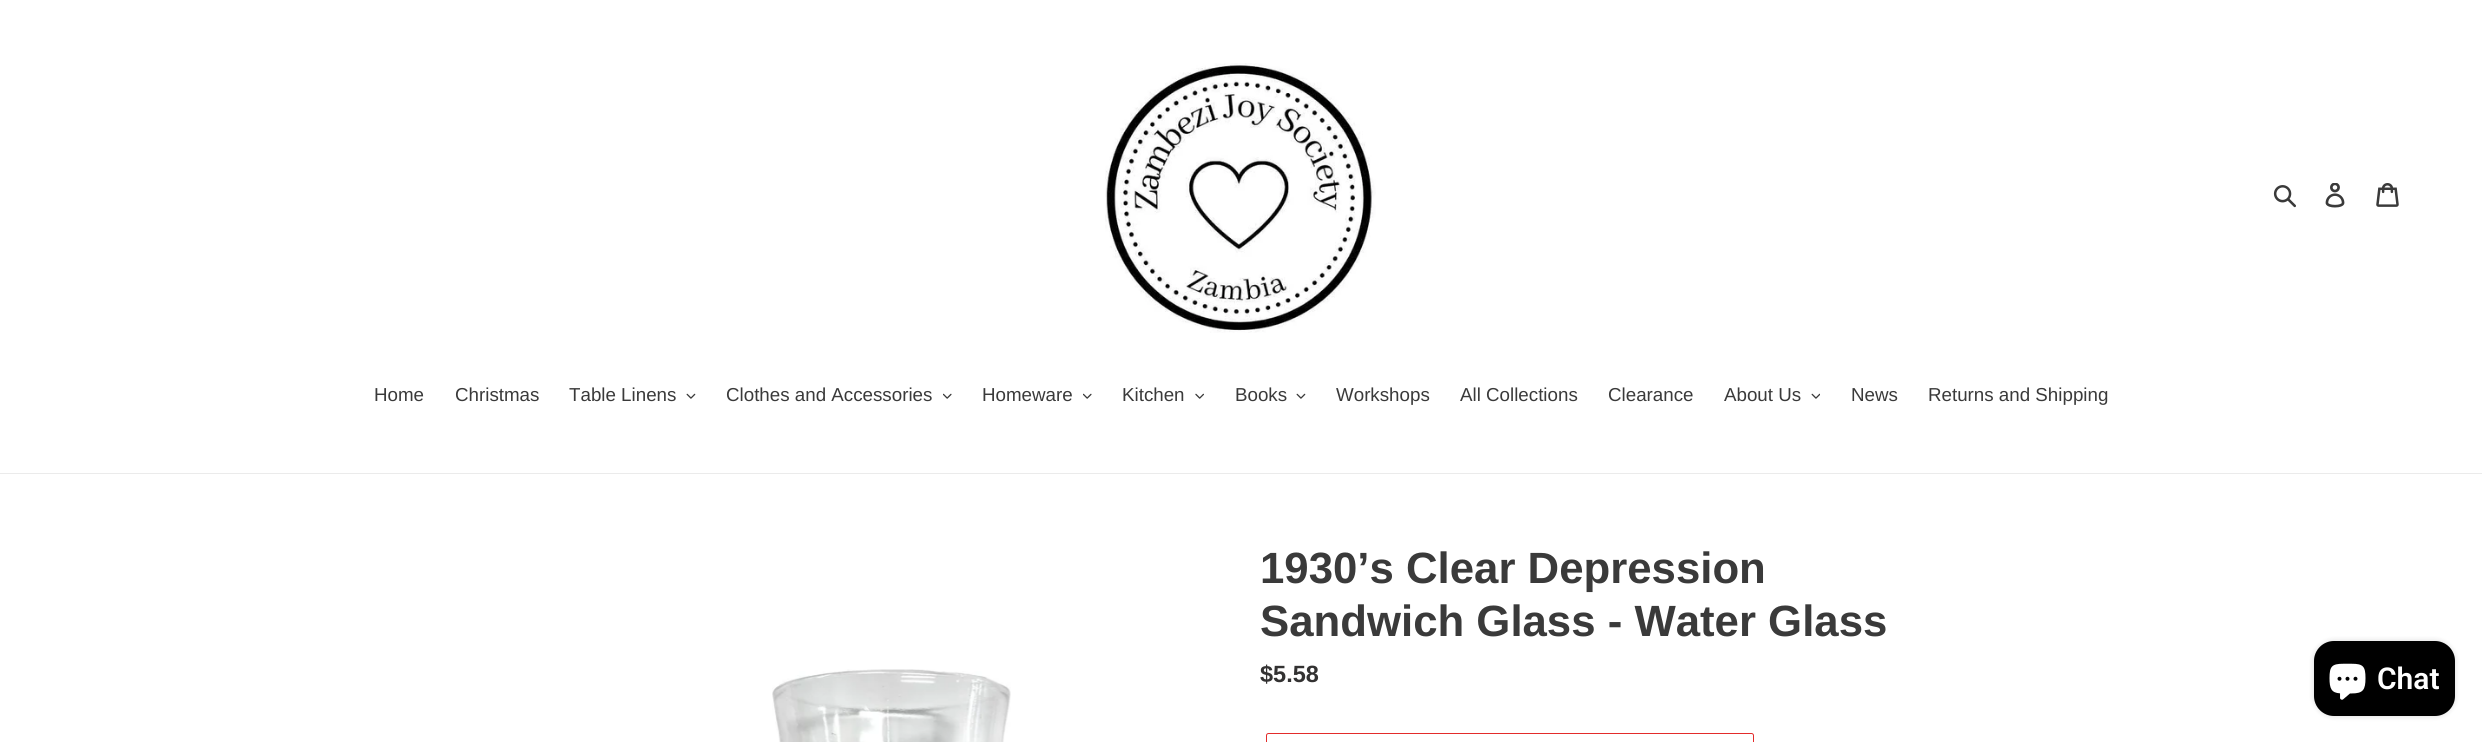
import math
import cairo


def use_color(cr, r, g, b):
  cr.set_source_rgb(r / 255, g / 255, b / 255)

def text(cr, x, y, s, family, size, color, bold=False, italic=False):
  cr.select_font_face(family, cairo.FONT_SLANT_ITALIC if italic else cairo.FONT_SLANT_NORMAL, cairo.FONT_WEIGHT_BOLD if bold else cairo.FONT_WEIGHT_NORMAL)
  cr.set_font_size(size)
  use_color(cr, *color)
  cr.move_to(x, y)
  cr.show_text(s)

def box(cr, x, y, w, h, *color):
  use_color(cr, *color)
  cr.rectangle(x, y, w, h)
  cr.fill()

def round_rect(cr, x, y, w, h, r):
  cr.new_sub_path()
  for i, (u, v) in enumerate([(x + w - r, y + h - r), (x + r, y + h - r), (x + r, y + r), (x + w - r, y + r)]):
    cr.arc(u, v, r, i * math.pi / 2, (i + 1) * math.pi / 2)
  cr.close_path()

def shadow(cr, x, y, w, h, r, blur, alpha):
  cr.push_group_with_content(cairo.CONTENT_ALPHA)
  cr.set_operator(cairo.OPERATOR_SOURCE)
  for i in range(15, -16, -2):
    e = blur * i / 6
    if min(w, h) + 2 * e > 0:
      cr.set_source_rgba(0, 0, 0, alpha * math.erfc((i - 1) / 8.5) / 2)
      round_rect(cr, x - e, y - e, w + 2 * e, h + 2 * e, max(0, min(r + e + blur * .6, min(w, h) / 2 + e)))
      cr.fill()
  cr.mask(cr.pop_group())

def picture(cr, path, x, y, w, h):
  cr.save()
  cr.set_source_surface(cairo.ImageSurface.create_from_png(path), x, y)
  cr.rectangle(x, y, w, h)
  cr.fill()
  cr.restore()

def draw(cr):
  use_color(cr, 255, 255, 255)
  cr.paint()
  picture(cr, "img_01.png", 1105, 63, 271, 270)
  picture(cr, "img_02.png", 2273, 185, 23, 23)
  picture(cr, "img_03.png", 2325, 183, 20, 25)
  picture(cr, "img_04.png", 2376, 183, 23, 24)
  box(cr, 0, 473, 2482, 1, 235, 235, 235)
  picture(cr, "img_05.png", 686, 393, 10, 6)
  picture(cr, "img_06.png", 943, 393, 9, 6)
  picture(cr, "img_06.png", 1083, 393, 9, 6)
  picture(cr, "img_07.png", 1195, 393, 9, 6)
  picture(cr, "img_05.png", 1296, 393, 10, 6)
  picture(cr, "img_08.png", 1811, 393, 9, 6)
  round_rect(cr, 1266.5, 733.5, 487, 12, 2)
  use_color(cr, 227, 44, 43)
  cr.set_line_width(1)
  cr.stroke()
  picture(cr, "img_09.png", 772, 669, 239, 73)
  use_color(cr, 0, 0, 0)
  shadow(cr, 2314, 641, 141, 75, 20, 3, 0.15)
  use_color(cr, 0, 0, 0)
  round_rect(cr, 2314, 641, 141, 75, 20)
  cr.fill()
  picture(cr, "img_10.png", 2329, 663, 37, 37)
  text(cr, 374, 401, "Home", "Liberation Sans", 18.75, (58, 58, 58))
  text(cr, 455, 401, "Christmas", "Liberation Sans", 18.75, (58, 58, 58))
  text(cr, 569, 401, "Table Linens", "Liberation Sans", 18.75, (58, 58, 58))
  text(cr, 726, 401, "Clothes and Accessories", "Liberation Sans", 18.75, (58, 58, 58))
  text(cr, 982, 401, "Homeware", "Liberation Sans", 18.75, (58, 58, 58))
  text(cr, 1122, 401, "Kitchen", "Liberation Sans", 18.75, (58, 58, 58))
  text(cr, 1235, 401, "Books", "Liberation Sans", 18.75, (58, 58, 58))
  text(cr, 1336, 401, "Workshops", "Liberation Sans", 18.75, (58, 58, 58))
  text(cr, 1460, 401, "All Collections", "Liberation Sans", 18.75, (58, 58, 58))
  text(cr, 1608, 401, "Clearance", "Liberation Sans", 18.75, (58, 58, 58))
  text(cr, 1724, 401, "About Us", "Liberation Sans", 18.75, (58, 58, 58))
  text(cr, 1851, 401, "News", "Liberation Sans", 18.75, (58, 58, 58))
  text(cr, 1928, 401, "Returns and Shipping", "Liberation Sans", 18.75, (58, 58, 58))
  text(cr, 1260, 583, "1930’s Clear Depression", "Liberation Sans", 43.75, (58, 58, 58), bold=True)
  text(cr, 1260, 636, "Sandwich Glass - Water Glass", "Liberation Sans", 43.75, (58, 58, 58), bold=True)
  text(cr, 1260, 682, "$5.58", "Liberation Sans", 23.5, (51, 50, 50), bold=True)
  text(cr, 2377, 689, "Chat", "Roboto SemiBold", 30, (255, 255, 255))


surface = cairo.ImageSurface(cairo.FORMAT_RGB24, 2482, 742)
cr = cairo.Context(surface)
options = cairo.FontOptions()
options.set_hint_metrics(cairo.HINT_METRICS_OFF)
options.set_hint_style(cairo.HINT_STYLE_NONE)
cr.set_font_options(options)
cr.set_miter_limit(4)
draw(cr)
surface.write_to_png("out.png")
